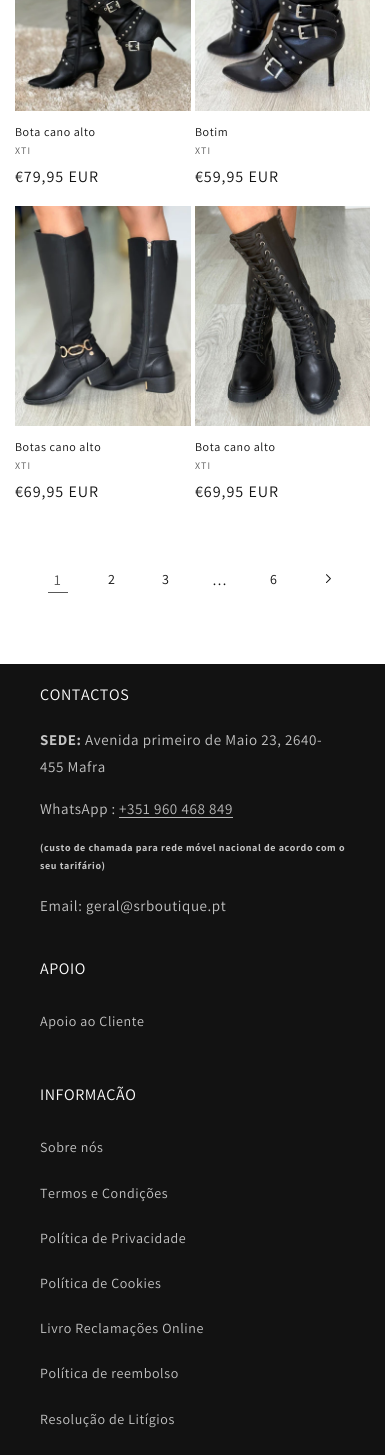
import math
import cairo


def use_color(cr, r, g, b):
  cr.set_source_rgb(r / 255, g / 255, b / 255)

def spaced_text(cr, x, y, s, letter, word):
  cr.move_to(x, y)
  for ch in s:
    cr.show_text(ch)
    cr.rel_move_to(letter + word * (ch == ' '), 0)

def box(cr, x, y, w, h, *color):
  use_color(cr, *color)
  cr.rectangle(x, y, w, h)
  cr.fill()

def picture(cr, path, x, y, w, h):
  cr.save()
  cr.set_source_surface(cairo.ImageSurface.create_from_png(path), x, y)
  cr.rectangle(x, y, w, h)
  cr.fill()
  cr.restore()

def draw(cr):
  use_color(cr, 255, 255, 255)
  cr.paint()
  picture(cr, "img_01.png", 15, 0, 176, 111)
  picture(cr, "img_02.png", 195, 0, 175, 111)
  picture(cr, "img_03.png", 15, 206, 176, 220)
  picture(cr, "img_04.png", 195, 206, 175, 220)
  box(cr, 48, 592, 20, 1, 89, 89, 89)
  picture(cr, "img_05.png", 326, 574, 5, 9)
  box(cr, 0, 664, 385, 791, 18, 18, 18)
  box(cr, 119, 817, 114, 1, 184, 184, 184)
  cr.select_font_face("Assistant")
  cr.set_font_size(12)
  use_color(cr, 18, 18, 18)
  spaced_text(cr, 15, 136, "Bota cano alto", 0.6, 0)
  cr.set_font_size(10)
  use_color(cr, 89, 89, 89)
  spaced_text(cr, 15, 154, "XTI", 1, 0)
  cr.set_font_size(16)
  use_color(cr, 18, 18, 18)
  spaced_text(cr, 15, 182, "€79,95 EUR", 1, 0)
  cr.set_font_size(12)
  spaced_text(cr, 195, 136, "Botim", 0.6, 0)
  cr.set_font_size(10)
  use_color(cr, 89, 89, 89)
  spaced_text(cr, 195, 154, "XTI", 1, 0)
  cr.set_font_size(16)
  use_color(cr, 18, 18, 18)
  spaced_text(cr, 195, 182, "€59,95 EUR", 1, 0)
  cr.set_font_size(12)
  spaced_text(cr, 15, 451, "Botas cano alto", 0.6, 0)
  cr.set_font_size(10)
  use_color(cr, 89, 89, 89)
  spaced_text(cr, 15, 469, "XTI", 1, 0)
  cr.set_font_size(16)
  use_color(cr, 18, 18, 18)
  spaced_text(cr, 15, 497, "€69,95 EUR", 1, 0)
  cr.set_font_size(12)
  spaced_text(cr, 195, 451, "Bota cano alto", 0.6, 0)
  cr.set_font_size(10)
  use_color(cr, 89, 89, 89)
  spaced_text(cr, 195, 469, "XTI", 1, 0)
  cr.set_font_size(16)
  use_color(cr, 18, 18, 18)
  spaced_text(cr, 195, 497, "€69,95 EUR", 1, 0)
  cr.set_font_size(15)
  use_color(cr, 89, 89, 89)
  spaced_text(cr, 54, 585, "1", 0.6, 0)
  cr.set_font_size(14)
  use_color(cr, 18, 18, 18)
  spaced_text(cr, 108, 584, "2", 0.6, 0)
  spaced_text(cr, 162, 584, "3", 0.6, 0)
  cr.set_font_size(15)
  spaced_text(cr, 212, 585, "…", 0.6, 0)
  cr.set_font_size(14)
  spaced_text(cr, 270, 584, "6", 0.6, 0)
  cr.set_font_size(16)
  use_color(cr, 255, 255, 255)
  spaced_text(cr, 40, 700, "CONTACTOS", 0.6, 0)
  cr.select_font_face("Assistant", cairo.FONT_SLANT_NORMAL, cairo.FONT_WEIGHT_BOLD)
  cr.set_font_size(15)
  use_color(cr, 196, 196, 196)
  spaced_text(cr, 40, 745, "SEDE:", 0.6, 0)
  cr.select_font_face("Assistant")
  spaced_text(cr, 85, 745, "Avenida primeiro de Maio 23, 2640-", 0.6, 0)
  spaced_text(cr, 40, 772, "455 Mafra", 0.6, 0)
  spaced_text(cr, 40, 814, "WhatsApp :", 0.6, 0)
  use_color(cr, 184, 184, 184)
  spaced_text(cr, 119, 814, "+351 960 468 849", 0.6, 0)
  cr.select_font_face("Assistant", cairo.FONT_SLANT_NORMAL, cairo.FONT_WEIGHT_BOLD)
  cr.set_font_size(10.05)
  use_color(cr, 196, 196, 196)
  spaced_text(cr, 40, 851, "(custo de chamada para rede móvel nacional de acordo com o", 0.6, 0)
  spaced_text(cr, 40, 869, "seu tarifário)", 0.6, 0)
  cr.select_font_face("Assistant")
  cr.set_font_size(15)
  spaced_text(cr, 40, 911, "Email: geral@srboutique.pt", 0.6, 0)
  cr.set_font_size(16)
  use_color(cr, 255, 255, 255)
  spaced_text(cr, 40, 974, "APOIO", 0.6, 0)
  cr.set_font_size(14)
  use_color(cr, 196, 196, 196)
  spaced_text(cr, 40, 1026, "Apoio ao Cliente", 0.6, 0)
  cr.set_font_size(16)
  use_color(cr, 255, 255, 255)
  spaced_text(cr, 40, 1100, "INFORMAÇÃO", 0.6, 0)
  cr.set_font_size(14)
  use_color(cr, 196, 196, 196)
  spaced_text(cr, 40, 1152, "Sobre nós", 0.6, 0)
  spaced_text(cr, 40, 1198, "Termos e Condições", 0.6, 0)
  spaced_text(cr, 40, 1243, "Política de Privacidade", 0.6, 0)
  spaced_text(cr, 40, 1288, "Política de Cookies", 0.6, 0)
  spaced_text(cr, 40, 1333, "Livro Reclamações Online", 0.6, 0)
  spaced_text(cr, 40, 1378, "Política de reembolso", 0.6, 0)
  spaced_text(cr, 40, 1424, "Resolução de Litígios", 0.6, 0)


surface = cairo.ImageSurface(cairo.FORMAT_RGB24, 385, 1455)
cr = cairo.Context(surface)
options = cairo.FontOptions()
options.set_hint_metrics(cairo.HINT_METRICS_OFF)
options.set_hint_style(cairo.HINT_STYLE_NONE)
cr.set_font_options(options)
cr.set_miter_limit(4)
draw(cr)
surface.write_to_png("out.png")
